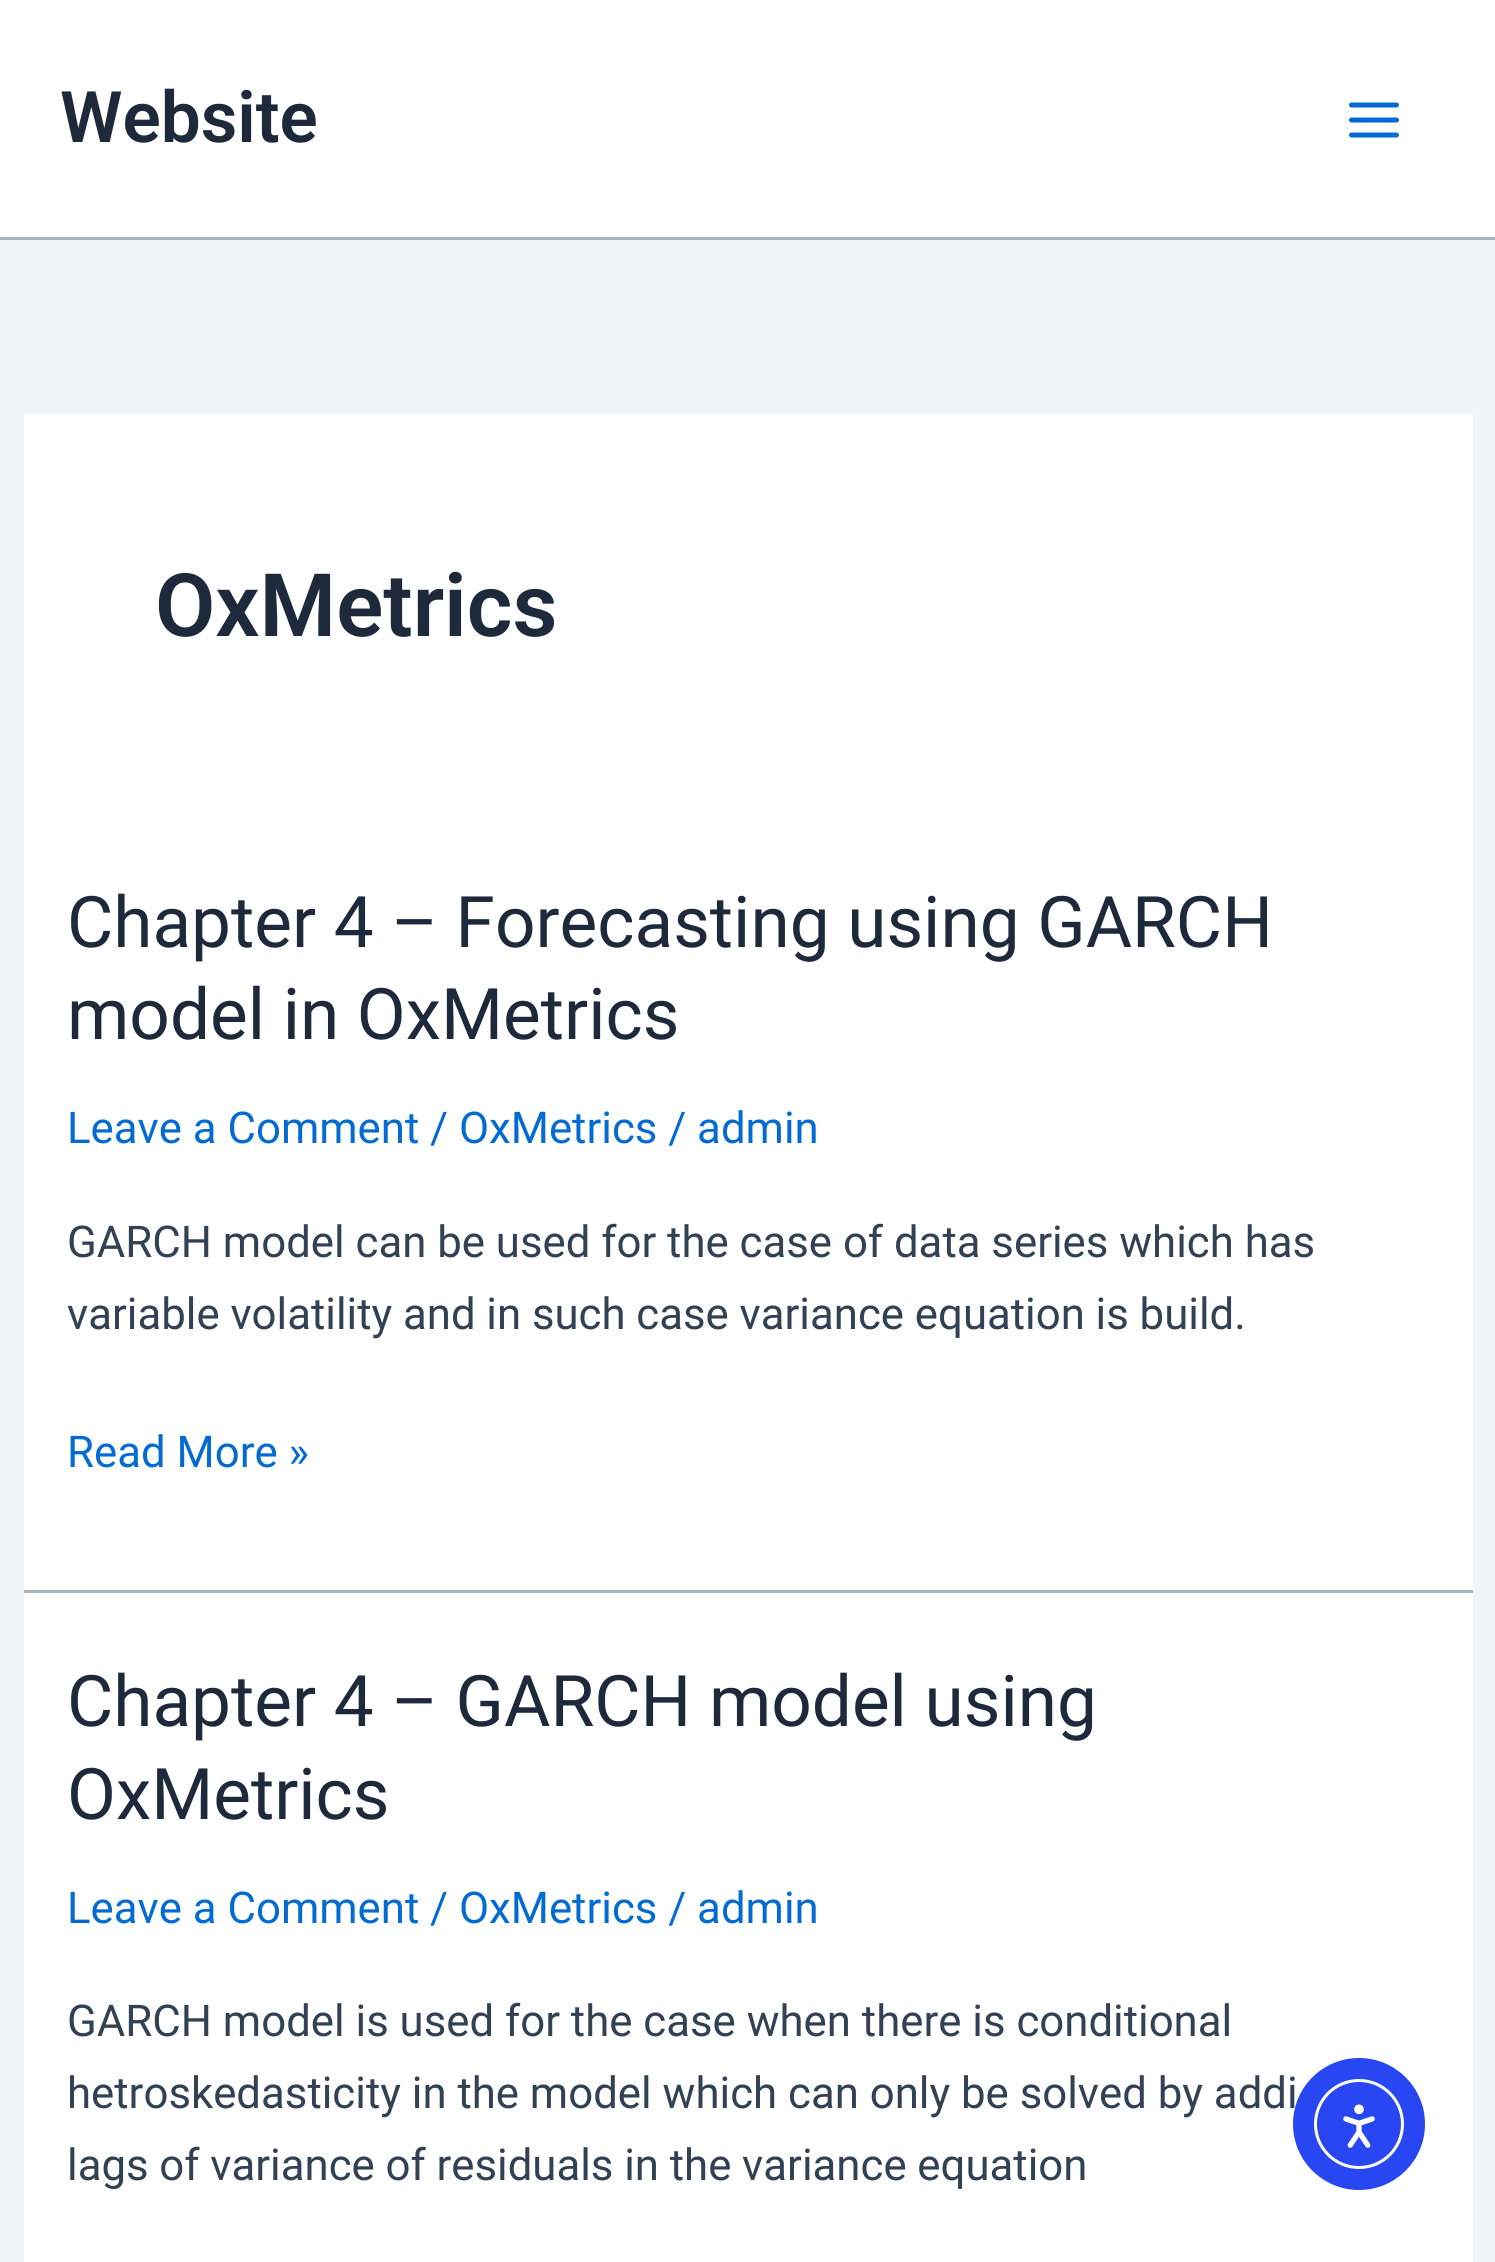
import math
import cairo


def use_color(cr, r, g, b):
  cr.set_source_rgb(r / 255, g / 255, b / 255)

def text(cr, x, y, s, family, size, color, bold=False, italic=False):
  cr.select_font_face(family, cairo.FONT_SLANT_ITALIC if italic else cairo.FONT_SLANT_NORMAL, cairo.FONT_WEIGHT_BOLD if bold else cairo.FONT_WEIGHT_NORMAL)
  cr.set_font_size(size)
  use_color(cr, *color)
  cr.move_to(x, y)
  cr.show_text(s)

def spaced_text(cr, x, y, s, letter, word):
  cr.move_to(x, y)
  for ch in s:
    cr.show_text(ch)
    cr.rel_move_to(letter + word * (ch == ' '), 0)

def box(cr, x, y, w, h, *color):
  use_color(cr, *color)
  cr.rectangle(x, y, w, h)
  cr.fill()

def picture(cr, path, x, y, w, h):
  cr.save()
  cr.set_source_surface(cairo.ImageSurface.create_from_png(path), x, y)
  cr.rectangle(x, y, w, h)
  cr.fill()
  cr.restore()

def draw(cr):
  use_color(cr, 240, 245, 250)
  cr.paint()
  box(cr, 0, 0, 1495, 237, 255, 255, 255)
  box(cr, 0, 237, 1495, 3, 173, 182, 190)
  picture(cr, "img_01.png", 1349, 102, 50, 36)
  box(cr, 24, 414, 1449, 1176, 255, 255, 255)
  box(cr, 24, 1590, 1449, 3, 173, 182, 190)
  box(cr, 24, 1593, 1449, 669, 255, 255, 255)
  text(cr, 60, 142, "Website", "Roboto SemiBold", 71.1, (30, 41, 59))
  text(cr, 155, 636, "OxMetrics", "Roboto SemiBold", 87.5, (30, 41, 59))
  text(cr, 67, 947, "Chapter 4 – Forecasting using GARCH", "Roboto", 71.1, (30, 41, 59))
  text(cr, 67, 1039, "model in OxMetrics", "Roboto", 71.1, (30, 41, 59))
  text(cr, 67, 1143, "Leave a Comment", "Roboto", 43.75, (4, 107, 210))
  text(cr, 430, 1143, "/ OxMetrics / admin", "Roboto", 43.75, (4, 107, 210))
  text(cr, 67, 1257, "GARCH model can be used for the case of data series which has", "Roboto", 43.75, (51, 65, 85))
  spaced_text(cr, 67, 1329, "variable volatility and in such case variance equation is build.", 0, -0.1)
  text(cr, 67, 1467, "Read More »", "Roboto", 43.75, (4, 107, 210))
  text(cr, 67, 1726, "Chapter 4 – GARCH model using", "Roboto", 71.1, (30, 41, 59))
  text(cr, 67, 1819, "OxMetrics", "Roboto", 71.1, (30, 41, 59))
  text(cr, 67, 1923, "Leave a Comment", "Roboto", 43.75, (4, 107, 210))
  text(cr, 430, 1923, "/ OxMetrics / admin", "Roboto", 43.75, (4, 107, 210))
  text(cr, 67, 2036, "GARCH model is used for the case when there is conditional", "Roboto", 43.75, (51, 65, 85))
  text(cr, 67, 2108, "hetroskedasticity in the model which can only be solved by addi", "Roboto", 43.75, (51, 65, 85))
  spaced_text(cr, 67, 2180, "lags of variance of residuals in the variance equation", 0, -0.1)
  use_color(cr, 40, 71, 243)
  cr.new_path()
  cr.arc(1359, 2124, 66, 0, 2 * math.pi)
  cr.fill()
  cr.arc(1359, 2124, 43.5, 0, 2 * math.pi)
  use_color(cr, 255, 255, 255)
  cr.set_line_width(3)
  cr.stroke()
  picture(cr, "img_02.png", 1343, 2104, 32, 44)


surface = cairo.ImageSurface(cairo.FORMAT_RGB24, 1495, 2262)
cr = cairo.Context(surface)
options = cairo.FontOptions()
options.set_hint_metrics(cairo.HINT_METRICS_OFF)
options.set_hint_style(cairo.HINT_STYLE_NONE)
cr.set_font_options(options)
cr.set_miter_limit(4)
draw(cr)
surface.write_to_png("out.png")
